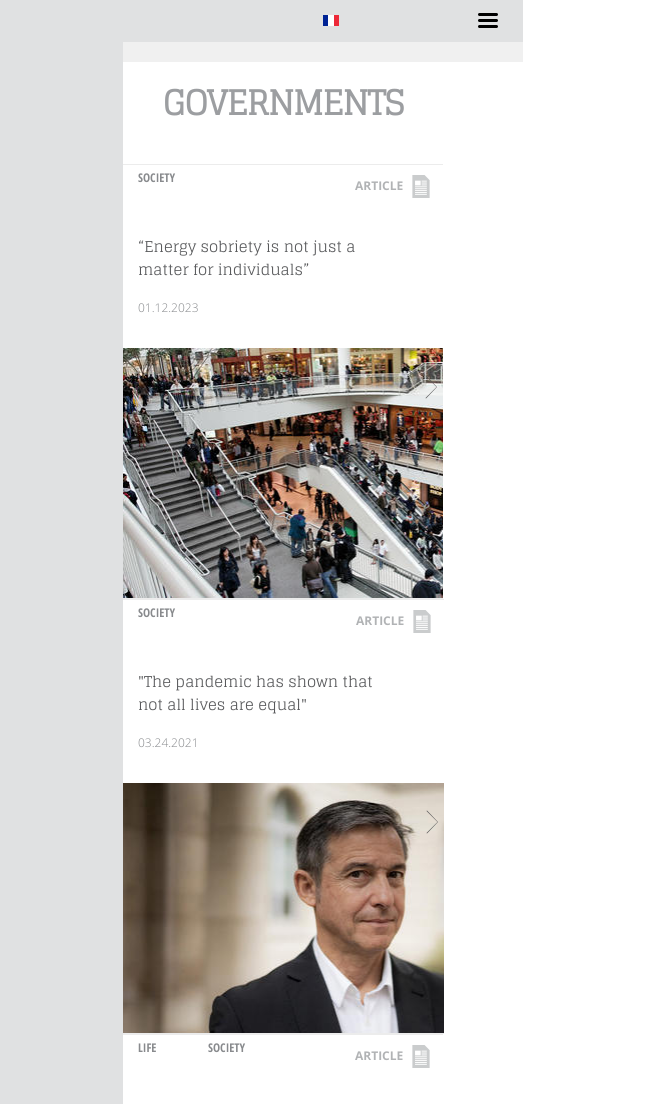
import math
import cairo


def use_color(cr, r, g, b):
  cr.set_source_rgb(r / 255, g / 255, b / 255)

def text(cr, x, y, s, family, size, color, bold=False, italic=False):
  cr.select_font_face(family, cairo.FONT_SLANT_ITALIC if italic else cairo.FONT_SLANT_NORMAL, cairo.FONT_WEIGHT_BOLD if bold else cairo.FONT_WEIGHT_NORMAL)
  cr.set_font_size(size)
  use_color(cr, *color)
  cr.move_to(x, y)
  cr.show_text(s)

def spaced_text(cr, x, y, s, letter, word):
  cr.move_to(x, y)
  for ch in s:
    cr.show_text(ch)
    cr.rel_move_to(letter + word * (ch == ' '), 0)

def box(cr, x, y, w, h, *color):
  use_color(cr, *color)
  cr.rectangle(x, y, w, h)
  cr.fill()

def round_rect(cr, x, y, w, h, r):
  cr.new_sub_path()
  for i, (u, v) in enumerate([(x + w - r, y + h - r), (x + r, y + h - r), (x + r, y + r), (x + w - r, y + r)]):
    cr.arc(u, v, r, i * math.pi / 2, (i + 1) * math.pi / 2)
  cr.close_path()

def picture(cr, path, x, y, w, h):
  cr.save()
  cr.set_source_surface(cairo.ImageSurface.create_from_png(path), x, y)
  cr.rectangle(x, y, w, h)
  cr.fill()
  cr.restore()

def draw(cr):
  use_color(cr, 255, 255, 255)
  cr.paint()
  box(cr, 0, 0, 123, 1104, 224, 225, 226)
  box(cr, 123, 0, 400, 42, 224, 225, 226)
  box(cr, 334, 15, 5, 11, 237, 41, 57)
  box(cr, 328, 15, 6, 11, 255, 255, 255)
  box(cr, 323, 15, 5, 11, 0, 35, 149)
  use_color(cr, 0, 0, 0)
  round_rect(cr, 478, 13, 20, 3, 1.5)
  cr.fill()
  round_rect(cr, 478, 19, 20, 3, 1.5)
  cr.fill()
  round_rect(cr, 478, 25, 20, 3, 1.5)
  cr.fill()
  box(cr, 123, 42, 400, 20, 240, 240, 240)
  box(cr, 123, 164, 320, 1, 236, 236, 236)
  box(cr, 123, 598, 320, 1, 236, 236, 236)
  picture(cr, "img_01.png", 412, 175, 18, 23)
  picture(cr, "img_02.png", 123, 348, 320, 250)
  use_color(cr, 86, 86, 87)
  cr.new_path()
  cr.move_to(425.5, 398)
  cr.line_to(426, 398.5)
  cr.line_to(437, 387)
  cr.line_to(426, 375.5)
  cr.line_to(425.5, 376)
  cr.line_to(436.5, 387)
  cr.close_path()
  cr.fill()
  box(cr, 123, 599, 321, 1, 236, 236, 236)
  box(cr, 123, 1033, 321, 1, 236, 236, 236)
  picture(cr, "img_01.png", 413, 610, 18, 23)
  picture(cr, "img_03.png", 123, 783, 321, 250)
  use_color(cr, 86, 86, 87)
  cr.new_path()
  cr.move_to(426.5, 833)
  cr.line_to(427, 833.5)
  cr.line_to(438, 822)
  cr.line_to(427, 810.5)
  cr.line_to(426.5, 811)
  cr.line_to(437.5, 822)
  cr.close_path()
  cr.fill()
  box(cr, 123, 1034, 320, 1, 236, 236, 236)
  picture(cr, "img_01.png", 412, 1045, 18, 23)
  cr.select_font_face("Glegoo", cairo.FONT_SLANT_NORMAL, cairo.FONT_WEIGHT_BOLD)
  cr.set_font_size(34)
  use_color(cr, 156, 158, 161)
  spaced_text(cr, 163, 115, "GOVERNMENTS", -1.1, 0)
  text(cr, 138, 182, "SOCIETY", "Open Sans Condensed", 12, (136, 138, 141), bold=True)
  text(cr, 355, 190, "ARTICLE", "Open Sans", 12, (177, 179, 181), bold=True)
  text(cr, 138, 252, "“Energy sobriety is not just a", "Glegoo", 15, (88, 89, 91))
  text(cr, 138, 275, "matter for individuals”", "Glegoo", 15, (88, 89, 91))
  text(cr, 138, 312, "01.12.2023", "Open Sans Light", 12, (136, 138, 141))
  text(cr, 138, 617, "SOCIETY", "Open Sans Condensed", 12, (136, 138, 141), bold=True)
  text(cr, 356, 625, "ARTICLE", "Open Sans", 12, (177, 179, 181), bold=True)
  text(cr, 138, 687, "\"The pandemic has shown that", "Glegoo", 15, (88, 89, 91))
  text(cr, 138, 710, "not all lives are equal\"", "Glegoo", 15, (88, 89, 91))
  text(cr, 138, 747, "03.24.2021", "Open Sans Light", 12, (136, 138, 141))
  text(cr, 138, 1052, "LIFE", "Open Sans Condensed", 12, (136, 138, 141), bold=True)
  text(cr, 208, 1052, "SOCIETY", "Open Sans Condensed", 12, (136, 138, 141), bold=True)
  text(cr, 355, 1060, "ARTICLE", "Open Sans", 12, (177, 179, 181), bold=True)


surface = cairo.ImageSurface(cairo.FORMAT_RGB24, 646, 1104)
cr = cairo.Context(surface)
options = cairo.FontOptions()
options.set_hint_metrics(cairo.HINT_METRICS_OFF)
options.set_hint_style(cairo.HINT_STYLE_NONE)
cr.set_font_options(options)
cr.set_miter_limit(4)
draw(cr)
surface.write_to_png("out.png")
